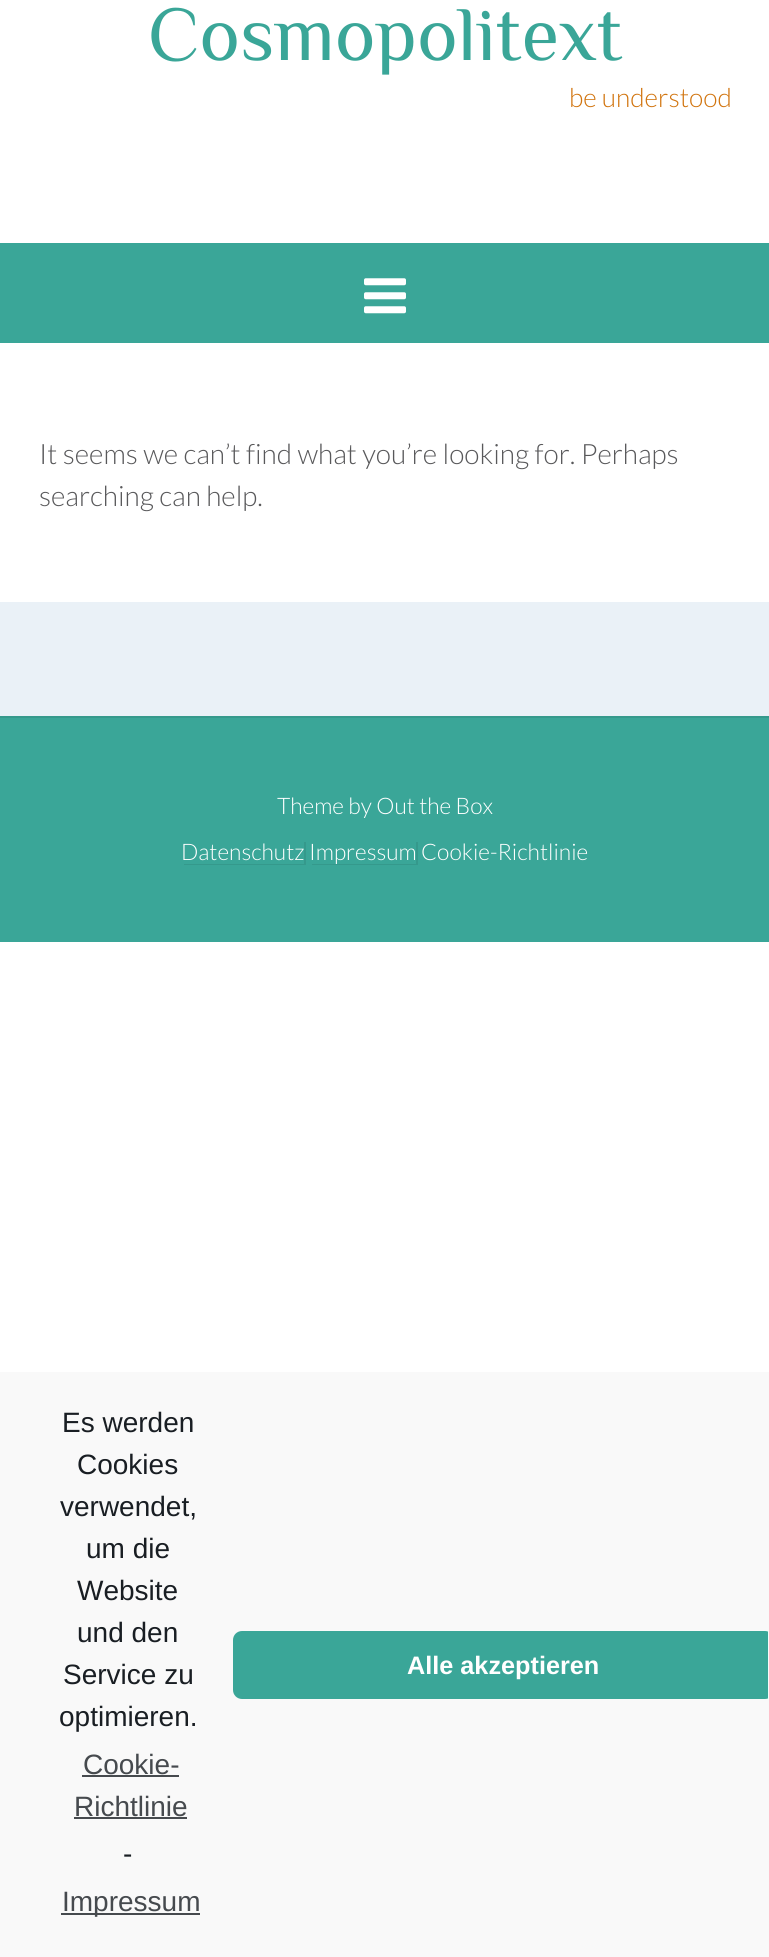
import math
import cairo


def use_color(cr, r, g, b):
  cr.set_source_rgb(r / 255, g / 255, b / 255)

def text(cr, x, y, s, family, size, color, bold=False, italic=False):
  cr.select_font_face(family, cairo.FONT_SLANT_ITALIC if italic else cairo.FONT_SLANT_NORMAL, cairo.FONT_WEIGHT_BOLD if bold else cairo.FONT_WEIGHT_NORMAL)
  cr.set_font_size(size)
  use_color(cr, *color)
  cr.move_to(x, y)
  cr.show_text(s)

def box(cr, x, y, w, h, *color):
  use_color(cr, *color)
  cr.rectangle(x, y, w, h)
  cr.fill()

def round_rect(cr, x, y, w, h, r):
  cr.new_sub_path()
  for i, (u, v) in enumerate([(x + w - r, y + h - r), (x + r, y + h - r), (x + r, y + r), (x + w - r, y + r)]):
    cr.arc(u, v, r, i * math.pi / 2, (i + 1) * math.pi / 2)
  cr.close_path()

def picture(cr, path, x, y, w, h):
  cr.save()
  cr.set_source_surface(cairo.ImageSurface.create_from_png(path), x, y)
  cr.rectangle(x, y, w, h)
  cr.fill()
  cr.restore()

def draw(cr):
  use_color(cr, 255, 255, 255)
  cr.paint()
  box(cr, 0, 243, 769, 100, 58, 166, 152)
  picture(cr, "img_01.png", 364, 278, 42, 36)
  box(cr, 0, 602, 769, 114, 234, 241, 247)
  box(cr, 0, 718, 769, 224, 58, 166, 152)
  box(cr, 0, 716, 769, 2, 53, 153, 140)
  cr.new_path()
  cr.move_to(184, 864)
  cr.line_to(184, 865)
  cr.line_to(306, 865)
  cr.line_to(306, 842)
  cr.line_to(304, 842)
  cr.line_to(304, 864)
  cr.close_path()
  cr.fill()
  cr.new_path()
  cr.move_to(312, 864)
  cr.line_to(312, 865)
  cr.line_to(418, 865)
  cr.line_to(418, 842)
  cr.line_to(416, 842)
  cr.line_to(416, 864)
  cr.close_path()
  cr.fill()
  box(cr, 0, 1372, 769, 585, 249, 249, 249)
  box(cr, 82, 1775, 97, 2, 70, 74, 78)
  box(cr, 74, 1817, 113, 2, 70, 74, 78)
  box(cr, 61, 1913, 139, 2, 70, 74, 78)
  cr.save()
  cr.rectangle(2, 1374, 766, 583)
  cr.clip()
  use_color(cr, 58, 166, 152)
  round_rect(cr, 235, 1633, 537, 64, 7)
  cr.fill_preserve()
  cr.set_line_width(4)
  cr.stroke()
  cr.restore()
  text(cr, 148, 60, "Cosmopolitext", "Philosopher", 77, (58, 166, 152))
  text(cr, 569, 107, "be understood", "Lato Light", 26.25, (209, 116, 14))
  text(cr, 39, 464, "It seems we can’t find what you’re looking for. Perhaps", "Lato Light", 28, (88, 88, 90))
  text(cr, 39, 506, "searching can help.", "Lato Light", 28, (88, 88, 90))
  text(cr, 277, 814, "Theme by Out the Box", "Lato Light", 22.75, (255, 255, 255))
  text(cr, 181, 860, "Datenschutz", "Lato Light", 22.75, (255, 255, 255))
  text(cr, 309, 860, "Impressum Cookie-Richtlinie", "Lato Light", 22.75, (255, 255, 255))
  text(cr, 62, 1432, "Es werden", "Liberation Sans", 28, (25, 30, 35))
  text(cr, 77, 1474, "Cookies", "Liberation Sans", 28, (25, 30, 35))
  text(cr, 60, 1516, "verwendet,", "Liberation Sans", 28, (25, 30, 35))
  text(cr, 86, 1558, "um die", "Liberation Sans", 28, (25, 30, 35))
  text(cr, 77, 1600, "Website", "Liberation Sans", 28, (25, 30, 35))
  text(cr, 77, 1642, "und den", "Liberation Sans", 28, (25, 30, 35))
  text(cr, 63, 1684, "Service zu", "Liberation Sans", 28, (25, 30, 35))
  text(cr, 59, 1726, "optimieren.", "Liberation Sans", 28, (25, 30, 35))
  text(cr, 83, 1774, "Cookie-", "Liberation Sans", 28, (70, 74, 78))
  text(cr, 74, 1816, "Richtlinie", "Liberation Sans", 28, (70, 74, 78))
  text(cr, 123, 1863, "-", "Liberation Sans", 28, (25, 30, 35))
  text(cr, 62, 1911, "Impressum", "Liberation Sans", 28, (70, 74, 78))
  text(cr, 407, 1674, "Alle akzeptieren", "Liberation Sans", 25.25, (255, 255, 255), bold=True)


surface = cairo.ImageSurface(cairo.FORMAT_RGB24, 769, 1957)
cr = cairo.Context(surface)
options = cairo.FontOptions()
options.set_hint_metrics(cairo.HINT_METRICS_OFF)
options.set_hint_style(cairo.HINT_STYLE_NONE)
cr.set_font_options(options)
cr.set_miter_limit(4)
draw(cr)
surface.write_to_png("out.png")
